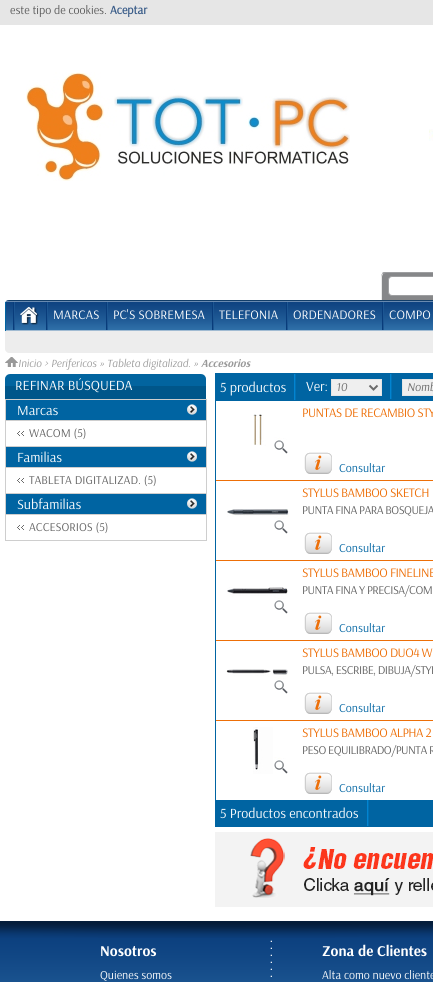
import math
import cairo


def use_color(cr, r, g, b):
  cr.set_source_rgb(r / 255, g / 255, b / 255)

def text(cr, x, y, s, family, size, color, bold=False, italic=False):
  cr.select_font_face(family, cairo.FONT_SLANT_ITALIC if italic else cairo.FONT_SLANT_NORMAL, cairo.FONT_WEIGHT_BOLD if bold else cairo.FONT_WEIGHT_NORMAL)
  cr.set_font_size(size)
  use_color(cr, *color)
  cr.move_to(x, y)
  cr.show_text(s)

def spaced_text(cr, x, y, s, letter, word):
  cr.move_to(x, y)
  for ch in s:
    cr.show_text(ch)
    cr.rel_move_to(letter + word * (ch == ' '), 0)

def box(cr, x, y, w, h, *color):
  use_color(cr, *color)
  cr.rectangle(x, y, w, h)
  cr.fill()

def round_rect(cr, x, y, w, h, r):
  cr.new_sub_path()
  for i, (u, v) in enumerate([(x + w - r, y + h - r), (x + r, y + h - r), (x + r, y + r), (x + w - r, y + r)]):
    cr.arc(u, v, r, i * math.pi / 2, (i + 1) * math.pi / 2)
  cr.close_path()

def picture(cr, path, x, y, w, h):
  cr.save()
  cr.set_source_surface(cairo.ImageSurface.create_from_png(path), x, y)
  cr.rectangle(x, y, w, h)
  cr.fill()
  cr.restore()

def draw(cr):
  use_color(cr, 255, 255, 255)
  cr.paint()
  box(cr, 0, 0, 433, 25, 230, 230, 230)
  picture(cr, "img_01.png", 26, 72, 324, 109)
  picture(cr, "img_02.png", 429, 129, 4, 12)
  use_color(cr, 134, 135, 137)
  cr.new_path()
  cr.move_to(386, 272)
  cr.line_to(433, 272)
  cr.curve_to(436, 272, 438, 274, 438, 277)
  cr.line_to(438, 300)
  cr.line_to(381, 300)
  cr.line_to(381, 277)
  cr.curve_to(381, 274, 383, 272, 386, 272)
  cr.close_path()
  cr.fill()
  use_color(cr, 158, 159, 161)
  cr.new_path()
  cr.move_to(386, 272)
  cr.curve_to(384, 272, 383, 272, 382, 273)
  cr.line_to(383, 274)
  cr.line_to(386, 273)
  cr.line_to(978, 273)
  cr.line_to(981, 274)
  cr.line_to(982, 273)
  cr.curve_to(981, 272, 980, 272, 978, 272)
  cr.close_path()
  cr.fill()
  use_color(cr, 234, 234, 234)
  cr.new_path()
  cr.move_to(381, 300)
  cr.line_to(382, 300)
  cr.line_to(382, 277)
  cr.curve_to(382, 276, 382.5, 275, 383, 274)
  cr.line_to(382.5, 273.5)
  cr.curve_to(381.5, 274, 381, 275.5, 381, 277)
  cr.close_path()
  cr.fill()
  use_color(cr, 255, 255, 255)
  round_rect(cr, 388.5, 276.5, 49, 19, 3.5)
  cr.fill_preserve()
  use_color(cr, 158, 159, 161)
  cr.set_line_width(1)
  cr.stroke()
  picture(cr, "img_03.png", 5, 300, 428, 31)
  box(cr, 5, 302, 1, 29, 0, 100, 162)
  picture(cr, "img_04.png", 13, 302, 2, 28)
  picture(cr, "img_05.png", 20, 307, 19, 18)
  picture(cr, "img_04.png", 46, 302, 2, 28)
  picture(cr, "img_04.png", 106, 302, 2, 28)
  picture(cr, "img_04.png", 212, 302, 2, 28)
  picture(cr, "img_04.png", 286, 302, 2, 28)
  picture(cr, "img_04.png", 382, 302, 2, 28)
  use_color(cr, 237, 237, 237)
  cr.new_path()
  cr.move_to(5, 331)
  cr.line_to(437, 331)
  cr.line_to(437, 349)
  cr.curve_to(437, 351, 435, 353, 433, 353)
  cr.line_to(9, 353)
  cr.curve_to(7, 353, 5, 351, 5, 349)
  cr.close_path()
  cr.fill()
  picture(cr, "img_06.png", 5, 357, 13, 10)
  picture(cr, "img_07.png", 5, 374, 201, 25)
  box(cr, 5, 399, 202, 1, 206, 206, 206)
  box(cr, 206, 399, 1, 142, 206, 206, 206)
  box(cr, 5, 399, 1, 142, 206, 206, 206)
  box(cr, 6, 400, 200, 20, 0, 100, 162)
  picture(cr, "img_08.png", 187, 404, 10, 11)
  box(cr, 6, 420, 200, 1, 206, 206, 206)
  box(cr, 6, 446, 200, 1, 206, 206, 206)
  picture(cr, "img_09.png", 17, 431, 7, 5)
  box(cr, 6, 447, 200, 20, 0, 100, 162)
  picture(cr, "img_08.png", 187, 451, 10, 11)
  box(cr, 6, 467, 200, 1, 206, 206, 206)
  box(cr, 6, 493, 200, 1, 206, 206, 206)
  picture(cr, "img_09.png", 17, 478, 7, 5)
  box(cr, 6, 494, 200, 20, 0, 100, 162)
  picture(cr, "img_08.png", 187, 498, 10, 11)
  box(cr, 6, 514, 200, 1, 206, 206, 206)
  box(cr, 6, 540, 200, 1, 206, 206, 206)
  picture(cr, "img_09.png", 17, 525, 7, 5)
  box(cr, 215, 373, 218, 28, 0, 100, 162)
  picture(cr, "img_10.png", 294, 374, 2, 26)
  picture(cr, "img_11.png", 390, 374, 2, 25)
  use_color(cr, 239, 239, 239)
  cr.rectangle(331.5, 379.5, 50, 16)
  cr.fill_preserve()
  use_color(cr, 229, 229, 229)
  cr.stroke()
  cr.new_path()
  cr.move_to(369.5, 385.5)
  cr.line_to(373.5, 389.5)
  cr.line_to(377.5, 385.5)
  use_color(cr, 107, 107, 107)
  cr.set_line_width(2)
  cr.stroke()
  use_color(cr, 239, 239, 239)
  cr.rectangle(402.5, 379.5, 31, 16)
  cr.fill_preserve()
  use_color(cr, 229, 229, 229)
  cr.set_line_width(1)
  cr.stroke()
  box(cr, 215, 401, 1, 399, 0, 100, 162)
  box(cr, 216, 480, 217, 1, 237, 111, 8)
  picture(cr, "img_12.png", 253, 414, 35, 40)
  picture(cr, "img_13.png", 304, 452, 28, 22)
  box(cr, 216, 560, 217, 1, 237, 111, 8)
  picture(cr, "img_14.png", 227, 509, 62, 25)
  picture(cr, "img_13.png", 304, 532, 28, 22)
  box(cr, 216, 640, 217, 1, 237, 111, 8)
  picture(cr, "img_15.png", 227, 587, 61, 27)
  picture(cr, "img_13.png", 304, 612, 28, 22)
  box(cr, 216, 720, 217, 1, 237, 111, 8)
  picture(cr, "img_16.png", 226, 669, 62, 25)
  picture(cr, "img_13.png", 304, 692, 28, 22)
  picture(cr, "img_17.png", 253, 727, 35, 47)
  picture(cr, "img_13.png", 304, 772, 28, 22)
  box(cr, 215, 800, 218, 27, 0, 100, 162)
  picture(cr, "img_10.png", 367, 800, 2, 26)
  picture(cr, "img_18.png", 215, 832, 218, 75)
  picture(cr, "img_19.png", 0, 921, 433, 61)
  picture(cr, "img_20.png", 0, 921, 433, 17)
  picture(cr, "img_21.png", 270, 940, 2, 37)
  text(cr, 10, 14, "este tipo de cookies.", "Arsenal", 12, (88, 88, 88))
  text(cr, 110, 14, "Aceptar", "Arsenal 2", 12, (56, 91, 136), bold=True)
  text(cr, 53, 319, "MARCAS", "Arsenal", 13, (255, 255, 255))
  text(cr, 113, 319, "PC'S SOBREMESA", "Arsenal", 13, (255, 255, 255))
  text(cr, 219, 319, "TELEFONIA", "Arsenal", 13, (255, 255, 255))
  text(cr, 293, 319, "ORDENADORES", "Arsenal", 13, (255, 255, 255))
  text(cr, 389, 319, "COMPO", "Arsenal", 13, (255, 255, 255))
  text(cr, 18, 367, "Inicio", "Arsenal", 11, (153, 153, 153), italic=True)
  text(cr, 44, 367, ">", "Arsenal 2", 11, (153, 153, 153), italic=True)
  text(cr, 51, 367, "Perifericos", "Arsenal", 11, (153, 153, 153), italic=True)
  text(cr, 99, 367, "»", "Arsenal 2", 11, (153, 153, 153), italic=True)
  text(cr, 107, 367, "Tableta digitalizad.", "Arsenal", 11, (153, 153, 153), italic=True)
  text(cr, 193, 367, "»", "Arsenal 2", 11, (153, 153, 153), italic=True)
  text(cr, 201, 367, "Accesorios", "Arsenal", 11, (153, 153, 153), bold=True, italic=True)
  text(cr, 15, 390, "REFINAR BÚSQUEDA", "Arsenal", 14, (255, 255, 255))
  text(cr, 17, 415, "Marcas", "Arsenal", 14, (255, 255, 255))
  text(cr, 29, 437, "WACOM (5)", "Arsenal", 12, (98, 98, 98))
  text(cr, 17, 462, "Familias", "Arsenal", 14, (255, 255, 255))
  text(cr, 29, 484, "TABLETA DIGITALIZAD. (5)", "Arsenal", 12, (98, 98, 98))
  text(cr, 17, 509, "Subfamilias", "Arsenal", 14, (255, 255, 255))
  text(cr, 29, 531, "ACCESORIOS (5)", "Arsenal", 12, (98, 98, 98))
  text(cr, 220, 392, "5 productos", "Arsenal", 14, (255, 255, 255))
  text(cr, 306, 391, "Ver:", "Arsenal", 14, (255, 255, 255))
  text(cr, 336, 391, "10", "Arsenal", 12, (107, 107, 107), italic=True)
  text(cr, 407, 391, "Nomb", "Arsenal", 12, (107, 107, 107), italic=True)
  cr.select_font_face("Arsenal")
  cr.set_font_size(13)
  use_color(cr, 237, 111, 8)
  spaced_text(cr, 302, 417, "PUNTAS DE RECAMBIO STY", -0.5, 0)
  text(cr, 339, 472, "Consultar", "Arsenal", 12, (0, 100, 162))
  cr.set_font_size(13)
  use_color(cr, 237, 111, 8)
  spaced_text(cr, 302, 497, "STYLUS BAMBOO SKETCH", -0.5, 0)
  cr.set_font_size(12)
  use_color(cr, 98, 98, 98)
  spaced_text(cr, 302, 514, "PUNTA FINA PARA BOSQUEJA", -0.5, 0)
  text(cr, 339, 552, "Consultar", "Arsenal", 12, (0, 100, 162))
  cr.set_font_size(13)
  use_color(cr, 237, 111, 8)
  spaced_text(cr, 302, 577, "STYLUS BAMBOO FINELINE", -0.5, 0)
  cr.set_font_size(12)
  use_color(cr, 98, 98, 98)
  spaced_text(cr, 302, 594, "PUNTA FINA Y PRECISA/COM", -0.5, 0)
  text(cr, 339, 632, "Consultar", "Arsenal", 12, (0, 100, 162))
  cr.set_font_size(13)
  use_color(cr, 237, 111, 8)
  spaced_text(cr, 302, 657, "STYLUS BAMBOO DUO4 W", -0.5, 0)
  cr.set_font_size(12)
  use_color(cr, 98, 98, 98)
  spaced_text(cr, 302, 674, "PULSA, ESCRIBE, DIBUJA/STYL", -0.5, 0)
  text(cr, 339, 712, "Consultar", "Arsenal", 12, (0, 100, 162))
  cr.set_font_size(13)
  use_color(cr, 237, 111, 8)
  spaced_text(cr, 302, 737, "STYLUS BAMBOO ALPHA 2", -0.5, 0)
  cr.set_font_size(12)
  use_color(cr, 98, 98, 98)
  spaced_text(cr, 302, 754, "PESO EQUILIBRADO/PUNTA R", -0.5, 0)
  text(cr, 339, 792, "Consultar", "Arsenal", 12, (0, 100, 162))
  text(cr, 220, 818, "5 Productos encontrados", "Arsenal", 14, (255, 255, 255))
  text(cr, 100, 956, "Nosotros", "Arsenal", 15, (255, 255, 255), bold=True)
  text(cr, 100, 979, "Quienes somos", "Arsenal", 12, (255, 255, 255))
  text(cr, 322, 956, "Zona de Clientes", "Arsenal", 15, (255, 255, 255), bold=True)
  text(cr, 322, 979, "Alta como nuevo cliente", "Arsenal", 12, (255, 255, 255))


surface = cairo.ImageSurface(cairo.FORMAT_RGB24, 433, 982)
cr = cairo.Context(surface)
options = cairo.FontOptions()
options.set_hint_metrics(cairo.HINT_METRICS_OFF)
options.set_hint_style(cairo.HINT_STYLE_NONE)
cr.set_font_options(options)
cr.set_miter_limit(4)
draw(cr)
surface.write_to_png("out.png")
